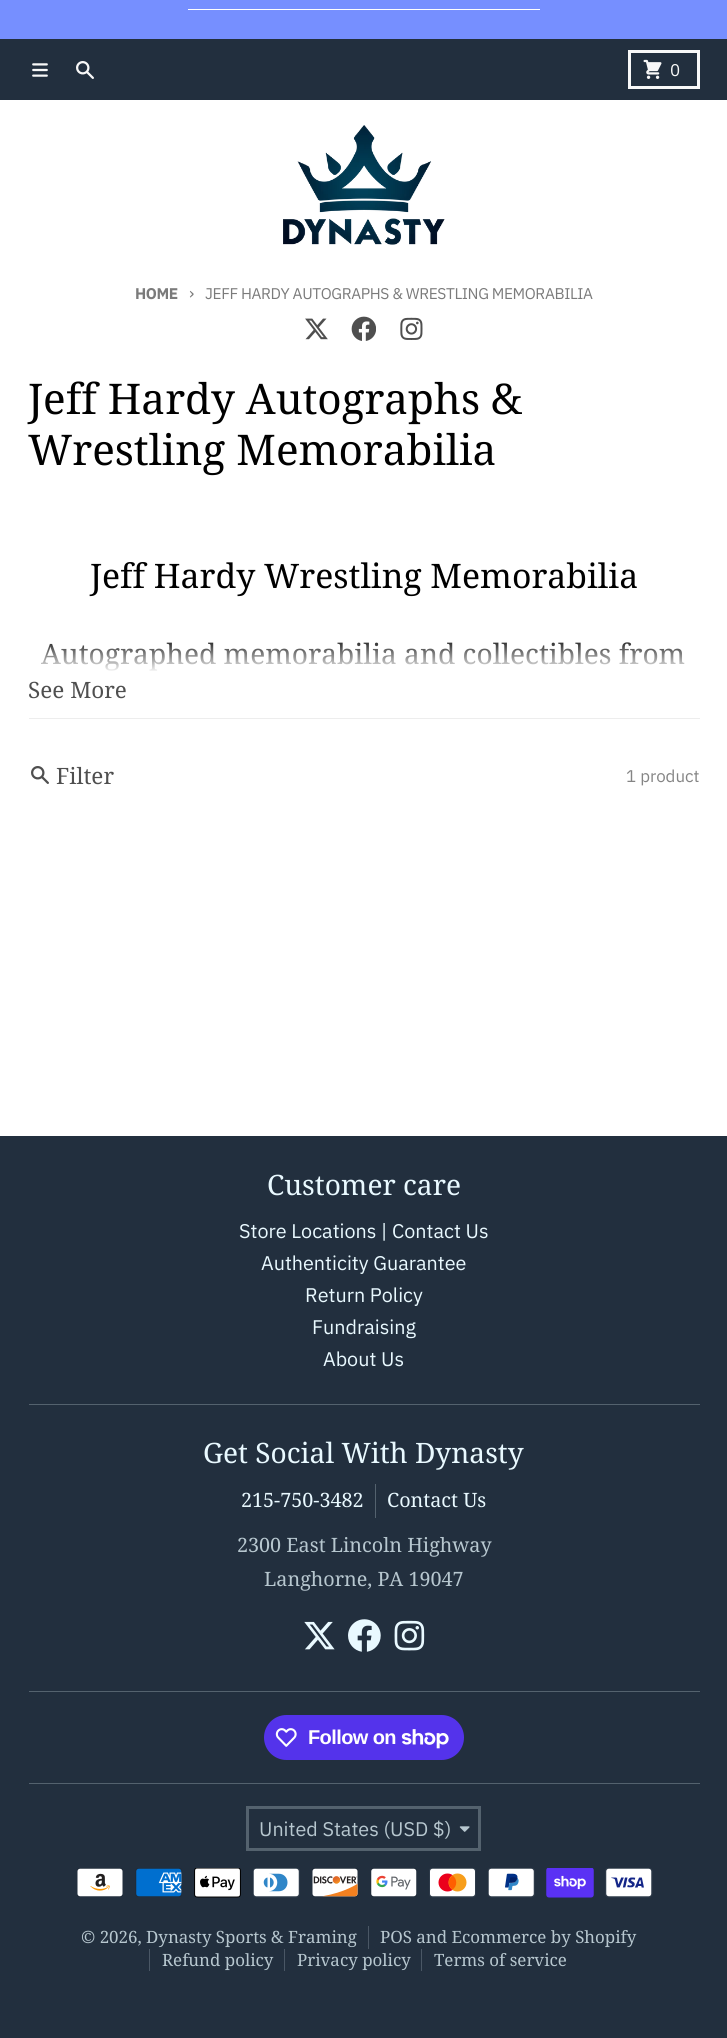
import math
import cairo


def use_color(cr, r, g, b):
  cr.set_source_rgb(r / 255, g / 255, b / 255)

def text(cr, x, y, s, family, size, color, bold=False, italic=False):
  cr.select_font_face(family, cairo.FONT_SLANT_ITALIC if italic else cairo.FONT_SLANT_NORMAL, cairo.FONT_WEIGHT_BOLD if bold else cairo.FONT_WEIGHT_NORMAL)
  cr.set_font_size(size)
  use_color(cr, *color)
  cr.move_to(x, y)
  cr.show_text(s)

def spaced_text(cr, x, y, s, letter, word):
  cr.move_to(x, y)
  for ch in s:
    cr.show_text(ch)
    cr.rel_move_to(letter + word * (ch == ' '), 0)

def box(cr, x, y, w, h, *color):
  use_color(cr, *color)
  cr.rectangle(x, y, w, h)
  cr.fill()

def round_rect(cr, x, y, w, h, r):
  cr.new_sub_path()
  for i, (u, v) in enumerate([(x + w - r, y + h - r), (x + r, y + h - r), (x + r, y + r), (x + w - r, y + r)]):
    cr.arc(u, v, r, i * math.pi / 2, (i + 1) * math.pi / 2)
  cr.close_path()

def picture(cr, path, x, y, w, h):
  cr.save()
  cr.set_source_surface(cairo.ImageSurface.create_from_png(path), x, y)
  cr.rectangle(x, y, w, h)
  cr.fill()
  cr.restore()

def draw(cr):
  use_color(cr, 34, 47, 62)
  cr.paint()
  box(cr, 0, 0, 727, 39, 118, 143, 255)
  box(cr, 188, 9, 352, 1, 255, 255, 255)
  picture(cr, "img_01.png", 32, 63, 16, 14)
  picture(cr, "img_02.png", 76, 61, 18, 18)
  cr.rectangle(629.5, 51.5, 69, 36)
  use_color(cr, 248, 248, 248)
  cr.set_line_width(3)
  cr.stroke()
  picture(cr, "img_03.png", 643, 59, 19, 20)
  box(cr, 0, 100, 727, 1036, 255, 255, 255)
  picture(cr, "img_04.png", 283, 125, 162, 120)
  picture(cr, "img_05.png", 305, 318, 23, 22)
  picture(cr, "img_06.png", 351, 316, 25, 25)
  picture(cr, "img_07.png", 400, 317, 23, 23)
  box(cr, 29, 718, 671, 1, 237, 237, 237)
  picture(cr, "img_08.png", 31, 766, 18, 18)
  box(cr, 29, 1404, 671, 1, 84, 98, 110)
  box(cr, 375, 1484, 1, 34, 84, 98, 110)
  picture(cr, "img_09.png", 304, 1621, 31, 29)
  picture(cr, "img_10.png", 348, 1619, 33, 33)
  picture(cr, "img_11.png", 394, 1620, 31, 31)
  box(cr, 29, 1691, 671, 1, 84, 98, 110)
  use_color(cr, 84, 51, 235)
  round_rect(cr, 264, 1715, 200, 45, 22.5)
  cr.fill()
  picture(cr, "img_12.png", 275, 1728, 22, 19)
  picture(cr, "img_13.png", 401, 1729, 48, 20)
  box(cr, 29, 1783, 671, 1, 84, 98, 110)
  cr.rectangle(247.5, 1807.5, 232, 42)
  cr.stroke()
  picture(cr, "img_14.png", 459, 1826, 11, 6)
  picture(cr, "img_15.png", 77, 1868, 46, 29)
  picture(cr, "img_16.png", 135, 1868, 47, 29)
  picture(cr, "img_17.png", 194, 1868, 47, 30)
  picture(cr, "img_18.png", 253, 1868, 47, 30)
  picture(cr, "img_19.png", 312, 1868, 46, 29)
  picture(cr, "img_20.png", 370, 1868, 47, 29)
  picture(cr, "img_21.png", 429, 1868, 47, 30)
  picture(cr, "img_22.png", 488, 1868, 47, 30)
  picture(cr, "img_23.png", 546, 1868, 48, 30)
  picture(cr, "img_24.png", 605, 1868, 48, 30)
  box(cr, 368, 1926, 1, 23, 74, 87, 101)
  box(cr, 149, 1949, 1, 22, 74, 87, 101)
  box(cr, 284, 1949, 1, 22, 74, 87, 101)
  box(cr, 421, 1949, 1, 22, 74, 87, 101)
  text(cr, 670, 76, "0", "IBM Plex Sans", 16.9, (248, 248, 248))
  cr.select_font_face("IBM Plex Sans", cairo.FONT_SLANT_NORMAL, cairo.FONT_WEIGHT_BOLD)
  cr.set_font_size(15.5)
  use_color(cr, 123, 123, 123)
  spaced_text(cr, 135, 299, "HOME", -0.4, 0)
  cr.select_font_face("IBM Plex Sans")
  cr.set_font_size(16.9)
  spaced_text(cr, 189, 299, "›", -0.4, 0)
  cr.set_font_size(15.5)
  spaced_text(cr, 205, 299, "JEFF HARDY AUTOGRAPHS & WRESTLING MEMORABILIA", -0.4, 0)
  text(cr, 28, 414, "Jeff Hardy Autographs &", "Noto Serif", 42.25, (0, 0, 0))
  text(cr, 28, 465, "Wrestling Memorabilia", "Noto Serif", 42.25, (0, 0, 0))
  text(cr, 90, 588, "Jeff Hardy Wrestling Memorabilia", "Noto Serif", 33.75, (0, 0, 0))
  text(cr, 41, 664, "Autographed memorabilia and collectibles from", "Noto Serif", 28.1, (0, 0, 0))
  gradient = cairo.LinearGradient(364, 635, 364, 673)
  gradient.add_color_stop_rgba(0, 1, 1, 1, 0)
  gradient.add_color_stop_rgba(1, 1, 1, 1, 1)
  cr.set_source(gradient)
  cr.rectangle(41, 642, 645, 29)
  cr.fill()
  text(cr, 28, 698, "See More", "Noto Serif", 22.5, (79, 79, 79))
  text(cr, 56, 784, "Filter", "Noto Serif", 22.5, (79, 79, 79))
  text(cr, 626, 782, "1 product", "IBM Plex Sans", 16.9, (132, 132, 132))
  text(cr, 267, 1195, "Customer care", "Noto Serif", 28.1, (233, 249, 255))
  text(cr, 239, 1238, "Store Locations | Contact Us", "IBM Plex Sans", 19.75, (233, 249, 255))
  text(cr, 261, 1270, "Authenticity Guarantee", "IBM Plex Sans", 19.75, (233, 249, 255))
  text(cr, 305, 1302, "Return Policy", "IBM Plex Sans", 19.75, (233, 249, 255))
  text(cr, 312, 1334, "Fundraising", "IBM Plex Sans", 19.75, (233, 249, 255))
  text(cr, 323, 1366, "About Us", "IBM Plex Sans", 19.75, (233, 249, 255))
  text(cr, 203, 1463, "Get Social With Dynasty", "Noto Serif", 28.1, (233, 249, 255))
  text(cr, 241, 1507, "215-750-3482", "Noto Serif", 19.75, (233, 249, 255))
  text(cr, 387, 1507, "Contact Us", "Noto Serif", 19.75, (233, 249, 255))
  text(cr, 237, 1552, "2300 East Lincoln Highway", "Noto Serif", 19.75, (183, 199, 207))
  text(cr, 264, 1586, "Langhorne, PA 19047", "Noto Serif", 19.75, (183, 199, 207))
  cr.select_font_face("Liberation Sans", cairo.FONT_SLANT_NORMAL, cairo.FONT_WEIGHT_BOLD)
  cr.set_font_size(20)
  use_color(cr, 255, 255, 255)
  spaced_text(cr, 308, 1744, "Follow on", -0.6, 0)
  text(cr, 259, 1836, "United States (USD $)", "IBM Plex Sans", 19.75, (183, 199, 207))
  text(cr, 81, 1943, "© 2026, Dynasty Sports & Framing", "Noto Serif", 16.9, (183, 199, 207))
  text(cr, 380, 1943, "POS and Ecommerce by Shopify", "Noto Serif", 16.9, (183, 199, 207))
  text(cr, 162, 1966, "Refund policy", "Noto Serif", 16.9, (183, 199, 207))
  text(cr, 297, 1966, "Privacy policy", "Noto Serif", 16.9, (183, 199, 207))
  text(cr, 434, 1966, "Terms of service", "Noto Serif", 16.9, (183, 199, 207))


surface = cairo.ImageSurface(cairo.FORMAT_RGB24, 727, 2038)
cr = cairo.Context(surface)
options = cairo.FontOptions()
options.set_hint_metrics(cairo.HINT_METRICS_OFF)
options.set_hint_style(cairo.HINT_STYLE_NONE)
cr.set_font_options(options)
cr.set_miter_limit(4)
draw(cr)
surface.write_to_png("out.png")
